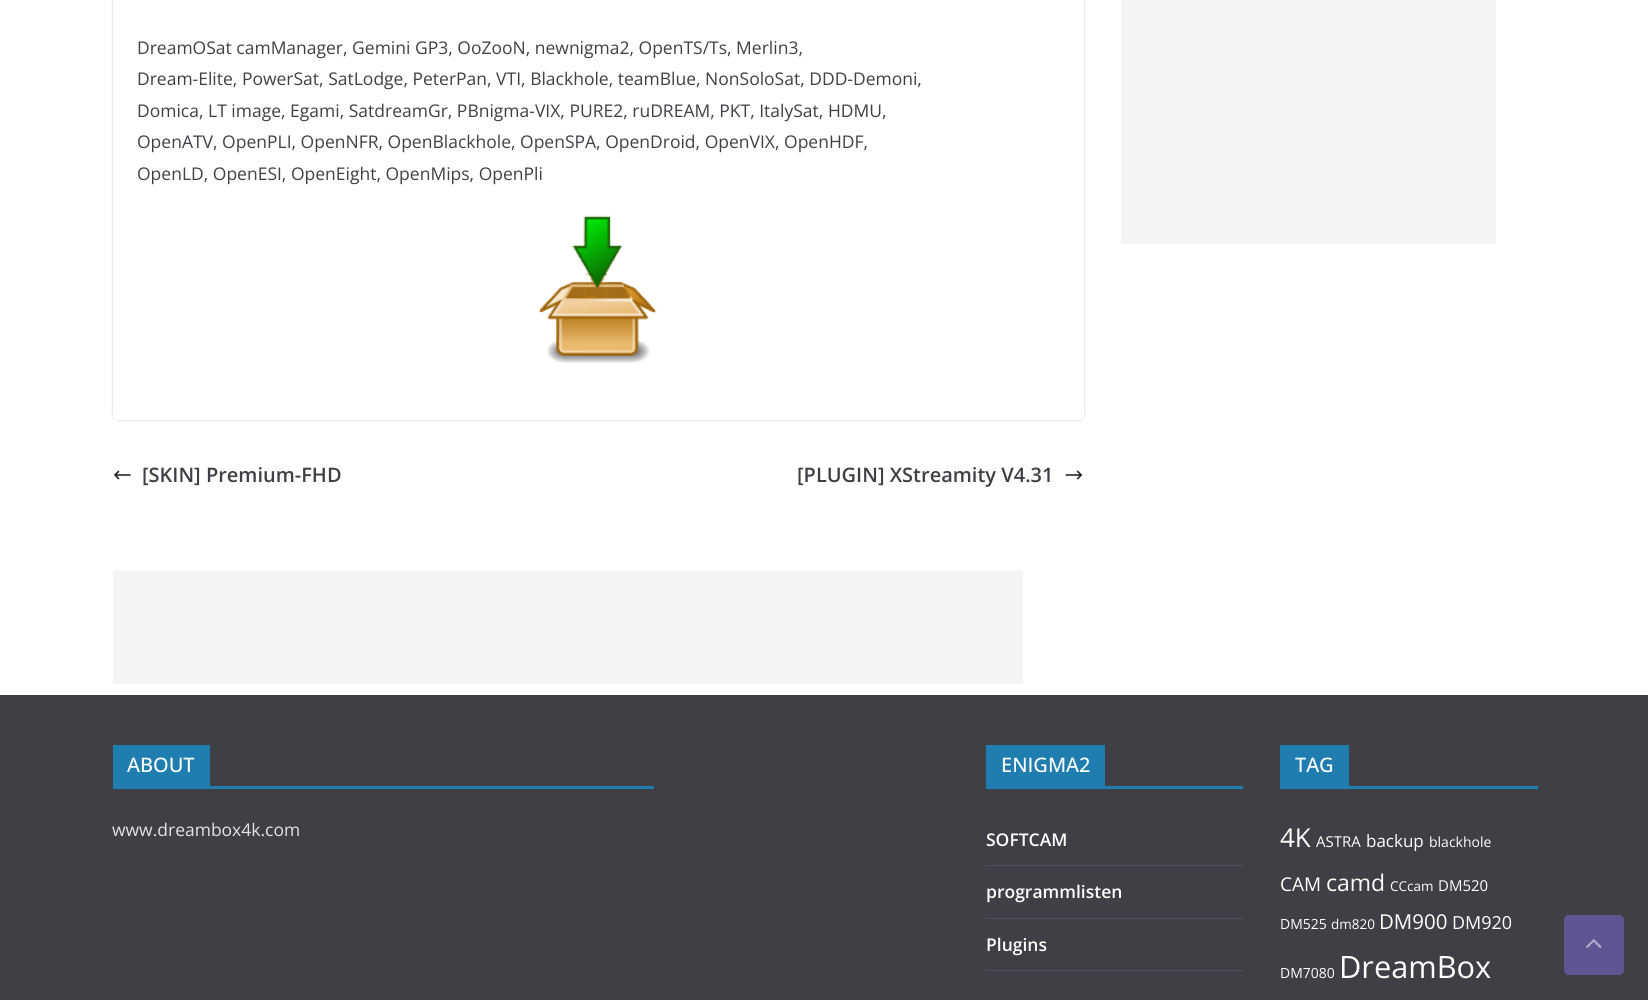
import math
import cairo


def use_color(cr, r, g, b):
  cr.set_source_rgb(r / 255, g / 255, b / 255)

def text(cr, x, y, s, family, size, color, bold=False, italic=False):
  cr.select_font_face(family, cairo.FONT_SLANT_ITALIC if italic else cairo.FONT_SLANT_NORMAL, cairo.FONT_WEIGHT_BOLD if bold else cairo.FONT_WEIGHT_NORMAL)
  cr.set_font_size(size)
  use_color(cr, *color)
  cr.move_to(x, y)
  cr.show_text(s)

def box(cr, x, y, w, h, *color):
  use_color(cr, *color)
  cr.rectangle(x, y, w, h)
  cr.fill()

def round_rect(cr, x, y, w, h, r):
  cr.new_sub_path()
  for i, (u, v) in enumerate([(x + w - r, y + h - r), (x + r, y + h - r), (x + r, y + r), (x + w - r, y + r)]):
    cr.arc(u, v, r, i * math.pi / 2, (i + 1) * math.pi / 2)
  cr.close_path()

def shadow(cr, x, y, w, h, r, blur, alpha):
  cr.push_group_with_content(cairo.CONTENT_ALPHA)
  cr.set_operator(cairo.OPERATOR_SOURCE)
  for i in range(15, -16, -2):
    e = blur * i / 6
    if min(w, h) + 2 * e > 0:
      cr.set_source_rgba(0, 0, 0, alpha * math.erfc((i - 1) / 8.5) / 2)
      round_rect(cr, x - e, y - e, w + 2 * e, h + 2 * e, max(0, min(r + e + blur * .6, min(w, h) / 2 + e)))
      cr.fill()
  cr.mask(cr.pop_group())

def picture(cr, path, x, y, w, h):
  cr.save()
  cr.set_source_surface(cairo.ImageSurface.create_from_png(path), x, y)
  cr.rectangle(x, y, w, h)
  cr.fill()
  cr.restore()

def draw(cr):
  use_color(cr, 255, 255, 255)
  cr.paint()
  cr.save()
  cr.set_fill_rule(cairo.FILL_RULE_EVEN_ODD)
  cr.new_path()
  cr.move_to(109, 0)
  cr.line_to(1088, 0)
  cr.line_to(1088, 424)
  cr.line_to(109, 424)
  cr.close_path()
  cr.move_to(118, -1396)
  cr.line_to(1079, -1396)
  cr.curve_to(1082, -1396, 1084, -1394, 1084, -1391)
  cr.line_to(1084, 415)
  cr.curve_to(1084, 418, 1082, 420, 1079, 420)
  cr.line_to(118, 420)
  cr.curve_to(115, 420, 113, 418, 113, 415)
  cr.line_to(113, -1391)
  cr.curve_to(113, -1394, 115, -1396, 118, -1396)
  cr.close_path()
  cr.clip()
  use_color(cr, 0, 0, 0)
  shadow(cr, 113, -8, 971, 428, 5, 1, 0.24)
  cr.restore()
  picture(cr, "img_01.png", 538, 215, 119, 149)
  picture(cr, "img_02.png", 114, 470, 17, 10)
  picture(cr, "img_03.png", 1065, 470, 17, 10)
  box(cr, 1121, 0, 375, 244, 244, 244, 245)
  box(cr, 113, 571, 910, 113, 244, 244, 245)
  box(cr, 0, 695, 1648, 305, 63, 63, 70)
  box(cr, 113, 786, 541, 3, 32, 125, 175)
  box(cr, 113, 745, 97, 41, 32, 125, 175)
  box(cr, 986, 786, 257, 3, 32, 125, 175)
  box(cr, 986, 745, 119, 41, 32, 125, 175)
  box(cr, 986, 865, 257, 1, 82, 82, 91)
  box(cr, 986, 918, 257, 1, 82, 82, 91)
  box(cr, 986, 970, 257, 1, 82, 82, 91)
  box(cr, 1280, 786, 258, 3, 32, 125, 175)
  box(cr, 1280, 745, 69, 41, 32, 125, 175)
  use_color(cr, 97, 84, 147)
  round_rect(cr, 1564, 915, 60, 60, 5)
  cr.fill()
  picture(cr, "img_04.png", 1586, 939, 16, 9)
  text(cr, 137, 54, "DreamOSat camManager, Gemini GP3, OoZooN, newnigma2, OpenTS/Ts, Merlin3,", "Open Sans", 17.5, (63, 63, 70))
  text(cr, 137, 85, "Dream-Elite, PowerSat, SatLodge, PeterPan, VTI, Blackhole, teamBlue, NonSoloSat, DDD-Demoni,", "Open Sans", 17.5, (63, 63, 70))
  text(cr, 137, 117, "Domica, LT image, Egami, SatdreamGr, PBnigma-VIX, PURE2, ruDREAM, PKT, ItalySat, HDMU,", "Open Sans", 17.5, (63, 63, 70))
  text(cr, 137, 148, "OpenATV, OpenPLI, OpenNFR, OpenBlackhole, OpenSPA, OpenDroid, OpenVIX, OpenHDF,", "Open Sans", 17.5, (63, 63, 70))
  text(cr, 137, 180, "OpenLD, OpenESI, OpenEight, OpenMips, OpenPli", "Open Sans", 17.5, (63, 63, 70))
  text(cr, 142, 482, "[SKIN] Premium-FHD", "Open Sans SemiBold", 20, (63, 63, 70))
  text(cr, 797, 482, "[PLUGIN] XStreamity V4.31", "Open Sans SemiBold", 20, (63, 63, 70))
  text(cr, 127, 772, "ABOUT", "Open Sans Medium", 20, (255, 255, 255))
  text(cr, 112, 836, "www.dreambox4k.com", "Open Sans", 17.5, (228, 228, 231))
  text(cr, 1001, 772, "ENIGMA2", "Open Sans Medium", 20, (255, 255, 255))
  text(cr, 986, 846, "SOFTCAM", "Open Sans SemiBold", 17.5, (255, 255, 255))
  text(cr, 986, 898, "programmlisten", "Open Sans SemiBold", 17.5, (255, 255, 255))
  text(cr, 986, 951, "Plugins", "Open Sans SemiBold", 17.5, (255, 255, 255))
  text(cr, 1295, 772, "TAG", "Open Sans Medium", 20, (255, 255, 255))
  text(cr, 1280, 847, "4K", "Open Sans", 26, (255, 255, 255))
  text(cr, 1316, 847, "ASTRA", "Open Sans", 15, (255, 255, 255))
  text(cr, 1366, 847, "backup", "Open Sans", 17, (255, 255, 255))
  text(cr, 1429, 847, "blackhole", "Open Sans", 14, (255, 255, 255))
  text(cr, 1280, 891, "CAM", "Open Sans", 19, (255, 255, 255))
  text(cr, 1326, 891, "camd", "Open Sans", 23, (255, 255, 255))
  text(cr, 1390, 891, "CCcam", "Open Sans", 13.5, (255, 255, 255))
  text(cr, 1438, 891, "DM520", "Open Sans", 15, (255, 255, 255))
  text(cr, 1280, 929, "DM525", "Open Sans", 14, (255, 255, 255))
  text(cr, 1331, 929, "dm820", "Open Sans", 13.5, (255, 255, 255))
  text(cr, 1379, 929, "DM900", "Open Sans", 20.5, (255, 255, 255))
  text(cr, 1452, 929, "DM920", "Open Sans", 18, (255, 255, 255))
  text(cr, 1280, 978, "DM7080", "Open Sans", 14, (255, 255, 255))
  text(cr, 1339, 978, "DreamBox", "Open Sans", 30.75, (255, 255, 255))


surface = cairo.ImageSurface(cairo.FORMAT_RGB24, 1648, 1000)
cr = cairo.Context(surface)
options = cairo.FontOptions()
options.set_hint_metrics(cairo.HINT_METRICS_OFF)
options.set_hint_style(cairo.HINT_STYLE_NONE)
cr.set_font_options(options)
cr.set_miter_limit(4)
draw(cr)
surface.write_to_png("out.png")
